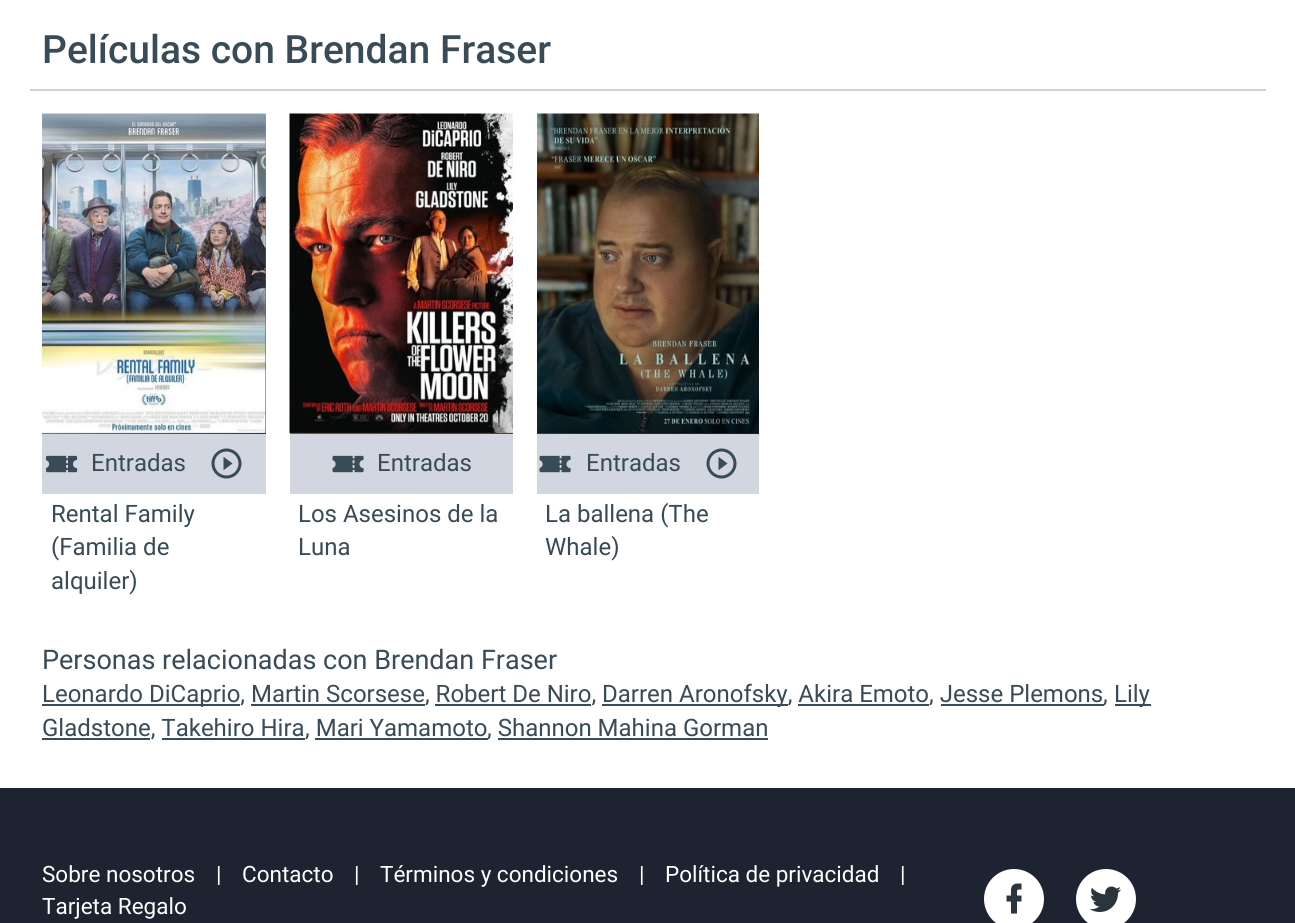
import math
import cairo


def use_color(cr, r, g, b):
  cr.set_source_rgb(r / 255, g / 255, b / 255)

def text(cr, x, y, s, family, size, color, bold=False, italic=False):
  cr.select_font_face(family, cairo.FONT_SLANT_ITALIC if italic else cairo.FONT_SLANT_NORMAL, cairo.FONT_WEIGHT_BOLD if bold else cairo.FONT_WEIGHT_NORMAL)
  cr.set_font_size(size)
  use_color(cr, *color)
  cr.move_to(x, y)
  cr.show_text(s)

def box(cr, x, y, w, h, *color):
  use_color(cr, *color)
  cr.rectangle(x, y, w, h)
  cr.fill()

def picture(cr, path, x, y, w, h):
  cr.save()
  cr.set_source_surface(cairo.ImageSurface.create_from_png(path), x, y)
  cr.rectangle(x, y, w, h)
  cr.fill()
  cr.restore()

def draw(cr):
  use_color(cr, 255, 255, 255)
  cr.paint()
  box(cr, 30, 89, 1236, 2, 211, 211, 213)
  gradient = cairo.LinearGradient(18, 138, 290, 410)
  gradient.add_color_stop_rgba(0, 0.812, 0.839, 0.827, 1)
  gradient.add_color_stop_rgba(1, 0.188, 0.22, 0.259, 1)
  cr.set_source(gradient)
  cr.rectangle(42, 114, 224, 320)
  cr.fill()
  picture(cr, "img_01.png", 42, 113, 224, 320)
  box(cr, 42, 434, 224, 60, 209, 214, 224)
  picture(cr, "img_02.png", 46, 455, 32, 18)
  picture(cr, "img_03.png", 211, 448, 31, 31)
  gradient = cairo.LinearGradient(266, 138, 537, 410)
  gradient.add_color_stop_rgba(0, 0.824, 0.412, 0.263, 1)
  gradient.add_color_stop_rgba(1, 0.451, 0.196, 0.18, 1)
  cr.set_source(gradient)
  cr.rectangle(290, 432, 223, 2)
  cr.fill()
  picture(cr, "img_04.png", 289, 113, 224, 320)
  box(cr, 290, 434, 223, 60, 209, 214, 224)
  picture(cr, "img_05.png", 332, 455, 32, 18)
  gradient = cairo.LinearGradient(513, 138, 783, 409)
  gradient.add_color_stop_rgba(0, 0.455, 0.369, 0.286, 1)
  gradient.add_color_stop_rgba(1, 0.102, 0.118, 0.11, 1)
  cr.set_source(gradient)
  cr.rectangle(537, 432, 222, 2)
  cr.fill()
  picture(cr, "img_06.png", 537, 113, 222, 320)
  box(cr, 537, 434, 222, 60, 209, 214, 224)
  picture(cr, "img_05.png", 539, 455, 32, 18)
  picture(cr, "img_03.png", 706, 448, 31, 31)
  box(cr, 42, 704, 198, 2, 56, 75, 86)
  box(cr, 602, 704, 186, 2, 56, 75, 86)
  box(cr, 1115, 704, 36, 2, 56, 75, 86)
  box(cr, 251, 704, 174, 2, 56, 75, 86)
  box(cr, 435, 704, 156, 2, 56, 75, 86)
  box(cr, 798, 704, 131, 2, 56, 75, 86)
  box(cr, 941, 704, 163, 2, 56, 75, 86)
  box(cr, 42, 738, 108, 2, 56, 75, 86)
  box(cr, 162, 738, 143, 2, 56, 75, 86)
  box(cr, 315, 738, 173, 2, 56, 75, 86)
  box(cr, 498, 738, 270, 2, 56, 75, 86)
  box(cr, 0, 788, 1295, 135, 29, 35, 48)
  use_color(cr, 255, 255, 255)
  cr.arc(1014, 899, 30, 0, 2 * math.pi)
  cr.fill()
  picture(cr, "img_07.png", 1006, 883, 16, 31)
  cr.arc(1106, 899, 30, 0, 2 * math.pi)
  cr.fill()
  picture(cr, "img_08.png", 1090, 886, 31, 26)
  text(cr, 42, 63, "Películas con Brendan Fraser", "Roboto Medium", 39, (56, 75, 86))
  text(cr, 91, 471, "Entradas", "Roboto", 24, (56, 75, 86))
  text(cr, 51, 522, "Rental Family", "Roboto", 24, (56, 75, 86))
  text(cr, 51, 555, "(Familia de", "Roboto", 24, (56, 75, 86))
  text(cr, 51, 589, "alquiler)", "Roboto", 24, (56, 75, 86))
  text(cr, 377, 471, "Entradas", "Roboto", 24, (56, 75, 86))
  text(cr, 298, 522, "Los Asesinos de la", "Roboto", 24, (56, 75, 86))
  text(cr, 298, 555, "Luna", "Roboto", 24, (56, 75, 86))
  text(cr, 586, 471, "Entradas", "Roboto", 24, (56, 75, 86))
  text(cr, 545, 522, "La ballena (The", "Roboto", 24, (56, 75, 86))
  text(cr, 545, 555, "Whale)", "Roboto", 24, (56, 75, 86))
  text(cr, 42, 669, "Personas relacionadas con Brendan Fraser", "Roboto", 27, (56, 75, 86))
  text(cr, 42, 702, "Leonardo DiCaprio, Martin Scorsese, Robert De Niro,", "Roboto", 24, (56, 75, 86))
  text(cr, 602, 702, "Darren Aronofsky, Akira Emoto, Jesse Plemons", "Roboto", 24, (56, 75, 86))
  text(cr, 1103, 702, ",", "Roboto", 24, (56, 75, 86))
  text(cr, 1114, 702, "Lily", "Roboto", 24, (56, 75, 86))
  text(cr, 42, 736, "Gladstone, Takehiro Hira", "Roboto", 24, (56, 75, 86))
  text(cr, 305, 736, ", Mari Yamamoto", "Roboto", 24, (56, 75, 86))
  text(cr, 487, 736, ", Shannon Mahina Gorman", "Roboto", 24, (56, 75, 86))
  text(cr, 42, 882, "Sobre nosotros", "Roboto", 22.5, (255, 255, 255))
  text(cr, 216, 882, "|", "Roboto", 22.5, (255, 255, 255))
  text(cr, 242, 882, "Contacto", "Roboto", 22.5, (255, 255, 255))
  text(cr, 354, 882, "|", "Roboto", 22.5, (255, 255, 255))
  text(cr, 380, 882, "Términos y condiciones", "Roboto", 22.5, (255, 255, 255))
  text(cr, 639, 882, "|", "Roboto", 22.5, (255, 255, 255))
  text(cr, 665, 882, "Política de privacidad", "Roboto", 22.5, (255, 255, 255))
  text(cr, 900, 882, "|", "Roboto", 22.5, (255, 255, 255))
  text(cr, 42, 914, "Tarjeta Regalo", "Roboto", 22.5, (255, 255, 255))


surface = cairo.ImageSurface(cairo.FORMAT_RGB24, 1295, 923)
cr = cairo.Context(surface)
options = cairo.FontOptions()
options.set_hint_metrics(cairo.HINT_METRICS_OFF)
options.set_hint_style(cairo.HINT_STYLE_NONE)
cr.set_font_options(options)
cr.set_miter_limit(4)
draw(cr)
surface.write_to_png("out.png")
